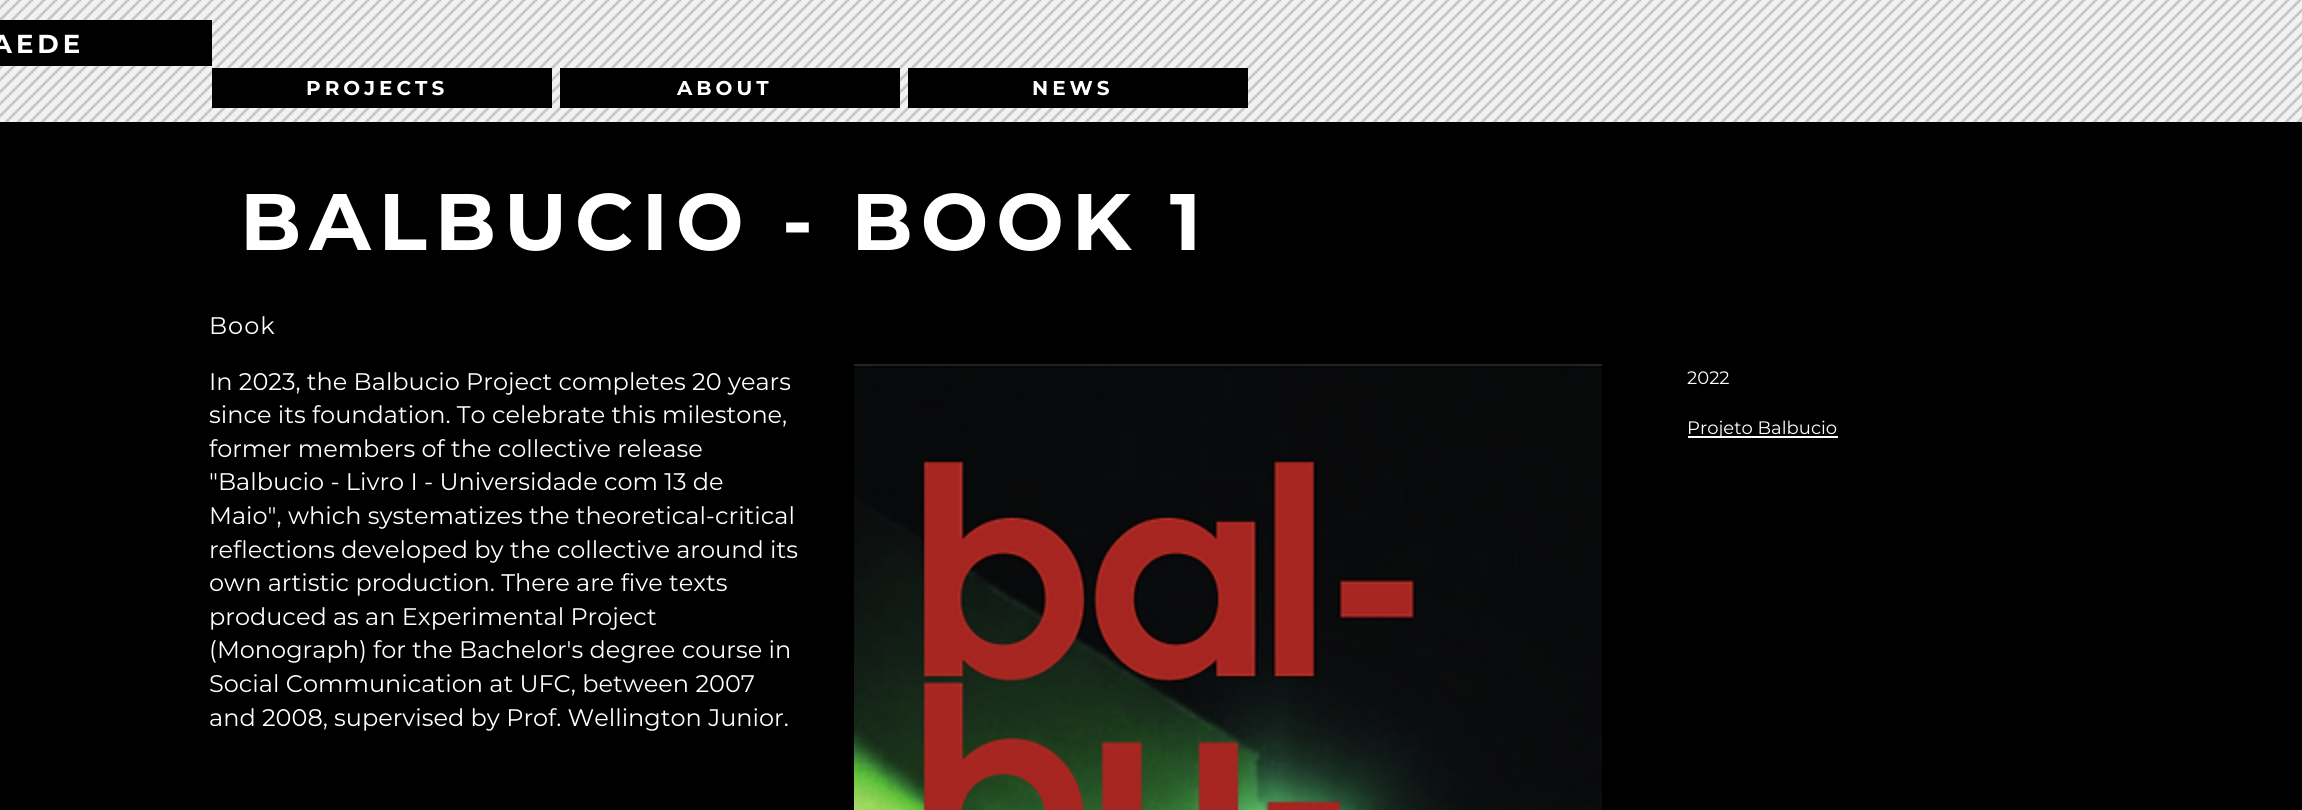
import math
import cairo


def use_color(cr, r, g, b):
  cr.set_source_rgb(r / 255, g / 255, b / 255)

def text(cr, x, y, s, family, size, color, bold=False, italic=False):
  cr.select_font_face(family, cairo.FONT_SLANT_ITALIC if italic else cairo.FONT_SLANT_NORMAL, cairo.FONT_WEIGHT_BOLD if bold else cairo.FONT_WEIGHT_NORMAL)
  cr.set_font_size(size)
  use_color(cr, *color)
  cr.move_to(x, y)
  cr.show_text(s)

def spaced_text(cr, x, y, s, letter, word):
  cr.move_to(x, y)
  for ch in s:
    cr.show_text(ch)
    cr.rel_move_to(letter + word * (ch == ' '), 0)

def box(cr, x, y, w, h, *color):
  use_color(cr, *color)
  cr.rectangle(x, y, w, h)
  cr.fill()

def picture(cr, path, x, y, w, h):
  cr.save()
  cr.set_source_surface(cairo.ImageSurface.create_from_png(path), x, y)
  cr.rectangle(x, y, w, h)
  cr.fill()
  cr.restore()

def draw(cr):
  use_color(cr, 242, 242, 242)
  cr.paint()
  picture(cr, "img_01.png", 0, 0, 2302, 122)
  box(cr, 0, 20, 212, 46, 0, 0, 0)
  box(cr, 212, 68, 340, 40, 0, 0, 0)
  box(cr, 560, 68, 340, 40, 0, 0, 0)
  box(cr, 908, 68, 340, 40, 0, 0, 0)
  box(cr, 0, 122, 2302, 688, 0, 0, 0)
  picture(cr, "img_02.png", 854, 364, 748, 446)
  box(cr, 1688, 436, 150, 2, 255, 255, 255)
  cr.select_font_face("Montserrat", cairo.FONT_SLANT_NORMAL, cairo.FONT_WEIGHT_BOLD)
  cr.set_font_size(26)
  spaced_text(cr, -8, 53, "AEDE", 4, 0)
  cr.set_font_size(20)
  spaced_text(cr, 306, 95, "PROJECTS", 4, 0)
  spaced_text(cr, 677, 95, "ABOUT", 4, 0)
  spaced_text(cr, 1032, 95, "NEWS", 4, 0)
  cr.set_font_size(80)
  spaced_text(cr, 240, 250, "BALBUCIO - BOOK 1", 8, 0)
  cr.select_font_face("Montserrat")
  cr.set_font_size(24)
  spaced_text(cr, 209, 334, "Book", 1, 0)
  text(cr, 209, 390, "In 2023, the Balbucio Project completes 20 years", "Montserrat", 24, (255, 255, 255))
  text(cr, 209, 423, "since its foundation. To celebrate this milestone,", "Montserrat", 24, (255, 255, 255))
  text(cr, 209, 457, "former members of the collective release", "Montserrat", 24, (255, 255, 255))
  text(cr, 209, 490, "\"Balbucio - Livro I - Universidade com 13 de", "Montserrat", 24, (255, 255, 255))
  text(cr, 209, 524, "Maio\", which systematizes the theoretical-critical", "Montserrat", 24, (255, 255, 255))
  text(cr, 209, 558, "reflections developed by the collective around its", "Montserrat", 24, (255, 255, 255))
  text(cr, 209, 591, "own artistic production. There are five texts", "Montserrat", 24, (255, 255, 255))
  text(cr, 209, 625, "produced as an Experimental Project", "Montserrat", 24, (255, 255, 255))
  text(cr, 209, 658, "(Monograph) for the Bachelor's degree course in", "Montserrat", 24, (255, 255, 255))
  text(cr, 209, 692, "Social Communication at UFC, between 2007", "Montserrat", 24, (255, 255, 255))
  text(cr, 209, 726, "and 2008, supervised by Prof. Wellington Junior.", "Montserrat", 24, (255, 255, 255))
  text(cr, 1687, 384, "2022", "Montserrat", 18, (255, 255, 255))
  text(cr, 1687, 434, "Projeto Balbucio", "Montserrat", 18, (255, 255, 255))


surface = cairo.ImageSurface(cairo.FORMAT_RGB24, 2302, 810)
cr = cairo.Context(surface)
options = cairo.FontOptions()
options.set_hint_metrics(cairo.HINT_METRICS_OFF)
options.set_hint_style(cairo.HINT_STYLE_NONE)
cr.set_font_options(options)
cr.set_miter_limit(4)
draw(cr)
surface.write_to_png("out.png")
